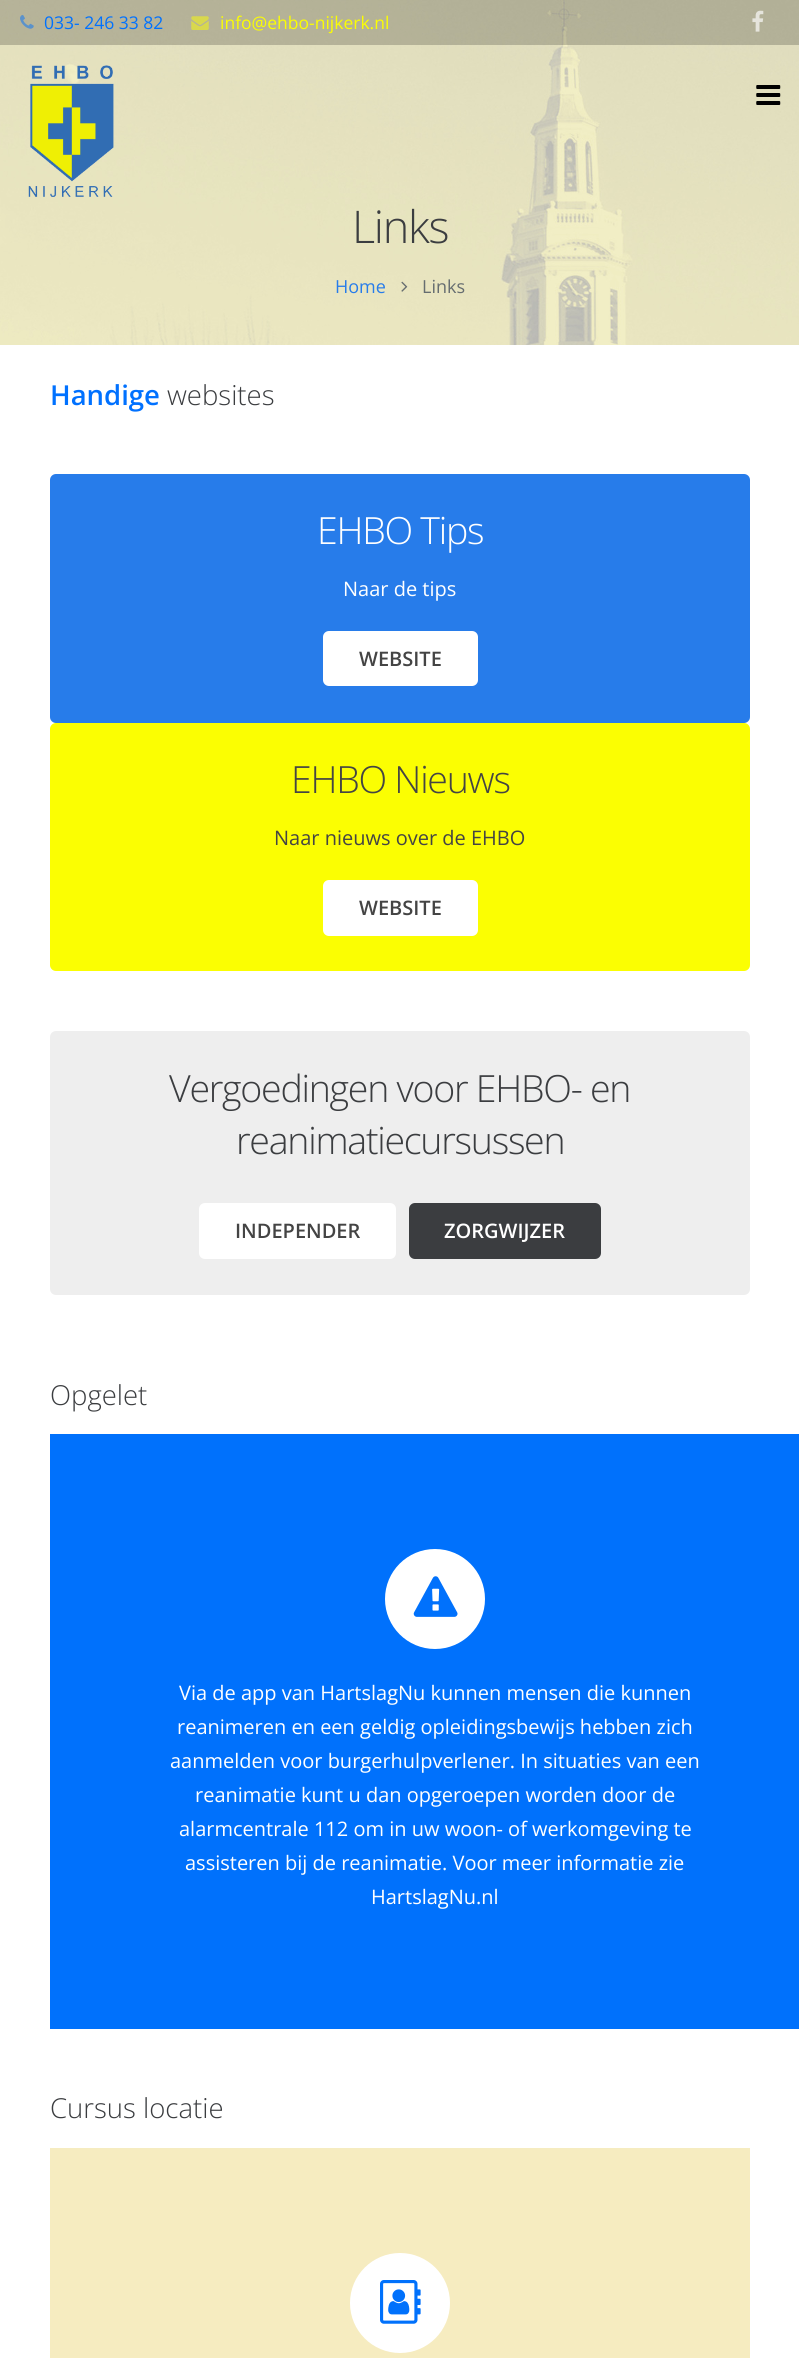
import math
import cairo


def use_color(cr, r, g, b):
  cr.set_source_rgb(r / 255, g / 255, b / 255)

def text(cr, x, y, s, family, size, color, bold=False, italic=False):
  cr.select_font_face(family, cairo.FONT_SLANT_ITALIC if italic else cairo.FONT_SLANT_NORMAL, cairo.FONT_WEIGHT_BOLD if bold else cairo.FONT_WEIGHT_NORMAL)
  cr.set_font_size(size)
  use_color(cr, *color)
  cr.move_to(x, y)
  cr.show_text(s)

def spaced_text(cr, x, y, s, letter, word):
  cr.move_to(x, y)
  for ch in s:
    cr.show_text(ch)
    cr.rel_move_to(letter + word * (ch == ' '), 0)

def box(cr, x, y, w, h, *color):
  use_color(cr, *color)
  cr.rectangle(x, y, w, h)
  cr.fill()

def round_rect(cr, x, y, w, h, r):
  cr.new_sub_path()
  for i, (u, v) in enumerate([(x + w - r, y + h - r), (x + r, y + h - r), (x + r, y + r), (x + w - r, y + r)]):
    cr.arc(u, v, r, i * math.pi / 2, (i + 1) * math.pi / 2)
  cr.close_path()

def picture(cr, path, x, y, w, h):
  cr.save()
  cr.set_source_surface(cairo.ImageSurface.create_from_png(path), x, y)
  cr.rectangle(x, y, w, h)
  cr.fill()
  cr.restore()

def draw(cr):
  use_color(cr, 255, 255, 255)
  cr.paint()
  picture(cr, "img_06.png", 0, 0, 799, 345)
  cr.set_source_rgba(0, 0, 0, 0.2)
  cr.rectangle(0, 0, 799, 45)
  cr.fill()
  picture(cr, "img_01.png", 20, 15, 14, 14)
  picture(cr, "img_02.png", 191, 16, 18, 14)
  picture(cr, "img_03.png", 752, 10, 12, 22)
  picture(cr, "img_04.png", 28, 65, 86, 132)
  picture(cr, "img_05.png", 756, 85, 25, 20)
  picture(cr, "img_07.png", 401, 281, 7, 11)
  use_color(cr, 39, 124, 234)
  round_rect(cr, 50, 474, 700, 249, 6)
  cr.fill()
  use_color(cr, 255, 255, 255)
  round_rect(cr, 323, 631, 155, 55, 6)
  cr.fill()
  use_color(cr, 251, 254, 2)
  round_rect(cr, 50, 723, 700, 248, 6)
  cr.fill()
  use_color(cr, 255, 255, 255)
  round_rect(cr, 323, 880, 155, 56, 6)
  cr.fill()
  use_color(cr, 238, 238, 238)
  round_rect(cr, 50, 1031, 700, 264, 6)
  cr.fill()
  use_color(cr, 255, 255, 255)
  round_rect(cr, 199, 1203, 197, 56, 6)
  cr.fill()
  use_color(cr, 59, 61, 64)
  round_rect(cr, 409, 1203, 192, 56, 6)
  cr.fill()
  box(cr, 50, 1434, 749, 595, 0, 113, 252)
  use_color(cr, 255, 255, 255)
  cr.arc(435, 1599, 50, 0, 2 * math.pi)
  cr.fill()
  picture(cr, "img_08.png", 413, 1576, 45, 41)
  box(cr, 50, 2148, 700, 210, 246, 236, 192)
  use_color(cr, 255, 255, 255)
  cr.arc(400, 2303, 50, 0, 2 * math.pi)
  cr.fill()
  picture(cr, "img_09.png", 380, 2280, 41, 44)
  text(cr, 44, 29, "033- 246 33 82", "Open Sans", 17.5, (0, 113, 255))
  text(cr, 220, 29, "info@ehbo-nijkerk.nl", "Open Sans", 17.5, (251, 254, 2))
  cr.select_font_face("Open Sans Light")
  cr.set_font_size(45)
  use_color(cr, 59, 61, 64)
  spaced_text(cr, 352, 243, "Links", -1.25, 0)
  text(cr, 335, 293, "Home", "Open Sans", 18, (39, 124, 234))
  text(cr, 422, 293, "Links", "Open Sans", 18, (102, 109, 112))
  text(cr, 50, 405, "Handige", "Open Sans SemiBold", 27.5, (0, 113, 255))
  text(cr, 167, 405, "websites", "Open Sans Light", 27.5, (59, 61, 64))
  cr.set_font_size(37.5)
  use_color(cr, 255, 255, 255)
  spaced_text(cr, 317, 544, "EHBO Tips", -1.25, 0)
  text(cr, 343, 596, "Naar de tips", "Open Sans", 20, (255, 255, 255))
  text(cr, 359, 666, "WEBSITE", "Open Sans SemiBold", 20, (68, 68, 68))
  cr.select_font_face("Open Sans Light")
  cr.set_font_size(37.5)
  spaced_text(cr, 291, 793, "EHBO Nieuws", -1.25, 0)
  text(cr, 274, 845, "Naar nieuws over de EHBO", "Open Sans", 20, (68, 68, 68))
  text(cr, 359, 915, "WEBSITE", "Open Sans SemiBold", 20, (68, 68, 68))
  cr.select_font_face("Open Sans Light")
  cr.set_font_size(37.5)
  use_color(cr, 59, 61, 64)
  spaced_text(cr, 169, 1102, "Vergoedingen voor EHBO- en", -1.25, 0)
  spaced_text(cr, 236, 1154, "reanimatiecursussen", -1.25, 0)
  text(cr, 235, 1238, "INDEPENDER", "Open Sans SemiBold", 20, (68, 68, 68))
  text(cr, 444, 1238, "ZORGWIJZER", "Open Sans SemiBold", 20, (255, 255, 255))
  text(cr, 50, 1405, "Opgelet", "Open Sans Light", 27.5, (59, 61, 64))
  text(cr, 179, 1700, "Via de app van HartslagNu kunnen mensen die kunnen", "Open Sans", 20, (255, 255, 255))
  text(cr, 177, 1734, "reanimeren en een geldig opleidingsbewijs hebben zich", "Open Sans", 20, (255, 255, 255))
  text(cr, 170, 1768, "aanmelden voor burgerhulpverlener. In situaties van een", "Open Sans", 20, (255, 255, 255))
  text(cr, 195, 1802, "reanimatie kunt u dan opgeroepen worden door de", "Open Sans", 20, (255, 255, 255))
  text(cr, 179, 1836, "alarmcentrale 112 om in uw woon- of werkomgeving te", "Open Sans", 20, (255, 255, 255))
  text(cr, 185, 1870, "assisteren bij de reanimatie. Voor meer informatie zie", "Open Sans", 20, (255, 255, 255))
  text(cr, 371, 1904, "HartslagNu.nl", "Open Sans", 20, (255, 255, 255))
  text(cr, 50, 2118, "Cursus locatie", "Open Sans Light", 27.5, (59, 61, 64))


surface = cairo.ImageSurface(cairo.FORMAT_RGB24, 799, 2358)
cr = cairo.Context(surface)
options = cairo.FontOptions()
options.set_hint_metrics(cairo.HINT_METRICS_OFF)
options.set_hint_style(cairo.HINT_STYLE_NONE)
cr.set_font_options(options)
cr.set_miter_limit(4)
draw(cr)
surface.write_to_png("out.png")
